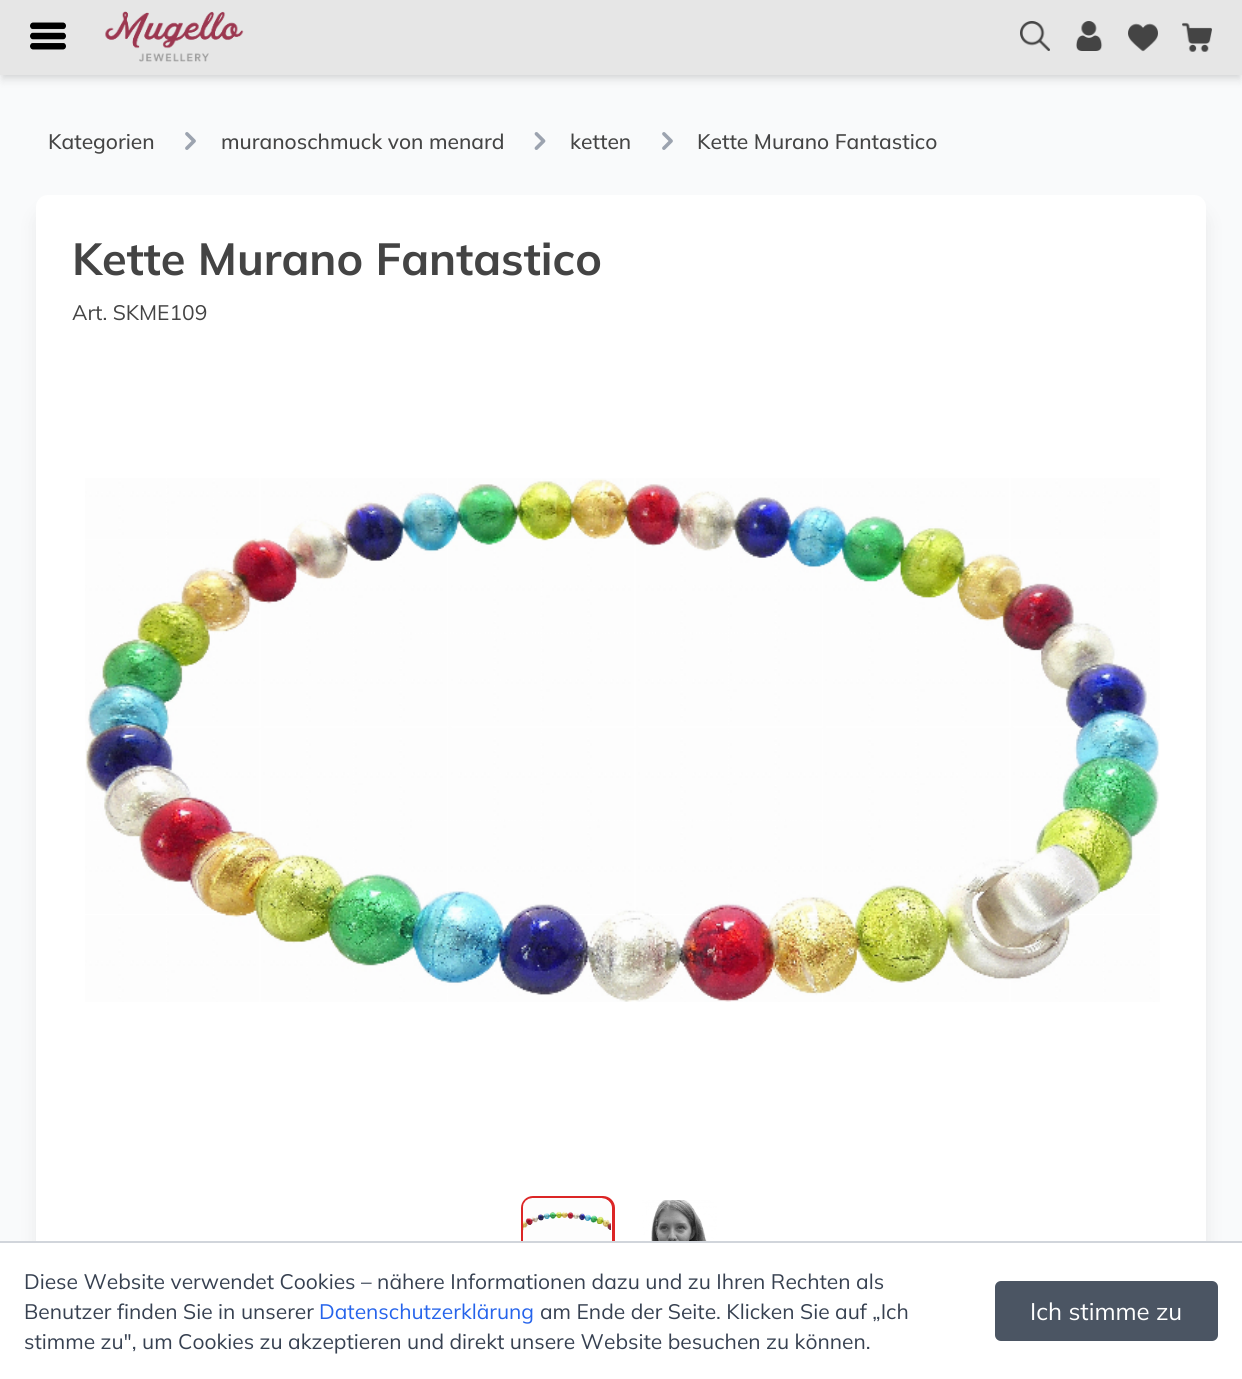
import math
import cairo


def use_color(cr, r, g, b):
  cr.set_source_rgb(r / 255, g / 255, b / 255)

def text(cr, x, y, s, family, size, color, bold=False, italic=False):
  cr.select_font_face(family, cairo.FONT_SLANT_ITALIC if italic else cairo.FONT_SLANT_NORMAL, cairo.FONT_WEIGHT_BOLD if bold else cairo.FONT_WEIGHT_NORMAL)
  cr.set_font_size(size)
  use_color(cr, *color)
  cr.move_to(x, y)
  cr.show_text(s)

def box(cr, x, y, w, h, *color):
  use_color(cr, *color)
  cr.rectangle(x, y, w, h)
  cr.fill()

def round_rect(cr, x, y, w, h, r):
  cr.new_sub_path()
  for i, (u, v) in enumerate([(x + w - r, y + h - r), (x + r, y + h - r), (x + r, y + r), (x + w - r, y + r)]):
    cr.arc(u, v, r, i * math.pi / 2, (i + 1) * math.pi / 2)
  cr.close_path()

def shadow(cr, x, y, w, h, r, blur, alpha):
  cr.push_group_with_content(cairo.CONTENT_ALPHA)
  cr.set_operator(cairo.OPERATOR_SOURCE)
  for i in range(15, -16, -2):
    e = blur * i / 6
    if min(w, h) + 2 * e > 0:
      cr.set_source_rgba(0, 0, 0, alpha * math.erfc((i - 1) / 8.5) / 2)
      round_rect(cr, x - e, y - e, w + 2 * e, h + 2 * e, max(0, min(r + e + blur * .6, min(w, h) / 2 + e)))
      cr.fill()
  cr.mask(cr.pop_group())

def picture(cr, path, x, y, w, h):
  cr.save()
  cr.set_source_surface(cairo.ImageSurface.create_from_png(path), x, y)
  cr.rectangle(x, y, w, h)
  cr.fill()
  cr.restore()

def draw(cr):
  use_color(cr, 249, 250, 251)
  cr.paint()
  use_color(cr, 0, 0, 0)
  shadow(cr, 3, 6, 1236, 69, 0, 3, 0.1)
  shadow(cr, 2, 8, 1239, 72, 0, 4.5, 0.1)
  box(cr, 0, 0, 1242, 75, 230, 230, 230)
  picture(cr, "img_01.png", 30, 22, 36, 28)
  picture(cr, "img_02.png", 105, 11, 139, 51)
  picture(cr, "img_03.png", 1020, 21, 30, 30)
  picture(cr, "img_04.png", 1076, 21, 27, 30)
  picture(cr, "img_05.png", 1128, 23, 30, 29)
  picture(cr, "img_06.png", 1182, 22, 30, 30)
  picture(cr, "img_07.png", 185, 132, 11, 18)
  picture(cr, "img_08.png", 534, 132, 12, 18)
  picture(cr, "img_07.png", 662, 132, 11, 18)
  use_color(cr, 0, 0, 0)
  shadow(cr, 41, 215, 1161, 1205, 8, 11, 0.1)
  use_color(cr, 255, 255, 255)
  round_rect(cr, 36, 195, 1170, 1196, 12)
  cr.fill()
  picture(cr, "img_09.png", 85, 478, 1075, 524)
  round_rect(cr, 522.5, 1197.5, 91, 91, 10.5)
  use_color(cr, 220, 38, 38)
  cr.set_line_width(3)
  cr.stroke()
  picture(cr, "img_10.png", 523, 1198, 88, 43)
  picture(cr, "img_11.png", 642, 1200, 75, 41)
  box(cr, 0, 1243, 1242, 136, 255, 255, 255)
  box(cr, 0, 1241, 1242, 2, 209, 213, 219)
  use_color(cr, 75, 85, 99)
  round_rect(cr, 995, 1281, 223, 60, 6)
  cr.fill()
  text(cr, 48, 149, "Kategorien", "Mulish Medium", 21, (68, 68, 68))
  text(cr, 221, 149, "muranoschmuck von menard", "Mulish Medium", 21, (68, 68, 68))
  text(cr, 570, 149, "ketten", "Mulish Medium", 21, (68, 68, 68))
  text(cr, 697, 149, "Kette Murano Fantastico", "Mulish Medium", 21, (68, 68, 68))
  text(cr, 72, 275, "Kette Murano Fantastico", "Mulish", 45, (68, 68, 68), bold=True)
  text(cr, 72, 320, "Art. SKME109", "Mulish", 21, (68, 68, 68))
  text(cr, 24, 1289, "Diese Website verwendet Cookies – nähere Informationen dazu und zu Ihren Rechten als", "Mulish", 21, (55, 65, 81))
  text(cr, 24, 1319, "Benutzer finden Sie in unserer", "Mulish", 21, (55, 65, 81))
  text(cr, 319, 1319, "Datenschutzerklärung", "Mulish", 21, (37, 99, 235))
  text(cr, 540, 1319, "am Ende der Seite. Klicken Sie auf „Ich", "Mulish", 21, (55, 65, 81))
  text(cr, 24, 1349, "stimme zu\", um Cookies zu akzeptieren und direkt unsere Website besuchen zu können.", "Mulish", 21, (55, 65, 81))
  text(cr, 1030, 1320, "Ich stimme zu", "Mulish", 24, (255, 255, 255))


surface = cairo.ImageSurface(cairo.FORMAT_RGB24, 1242, 1379)
cr = cairo.Context(surface)
options = cairo.FontOptions()
options.set_hint_metrics(cairo.HINT_METRICS_OFF)
options.set_hint_style(cairo.HINT_STYLE_NONE)
cr.set_font_options(options)
cr.set_miter_limit(4)
draw(cr)
surface.write_to_png("out.png")
